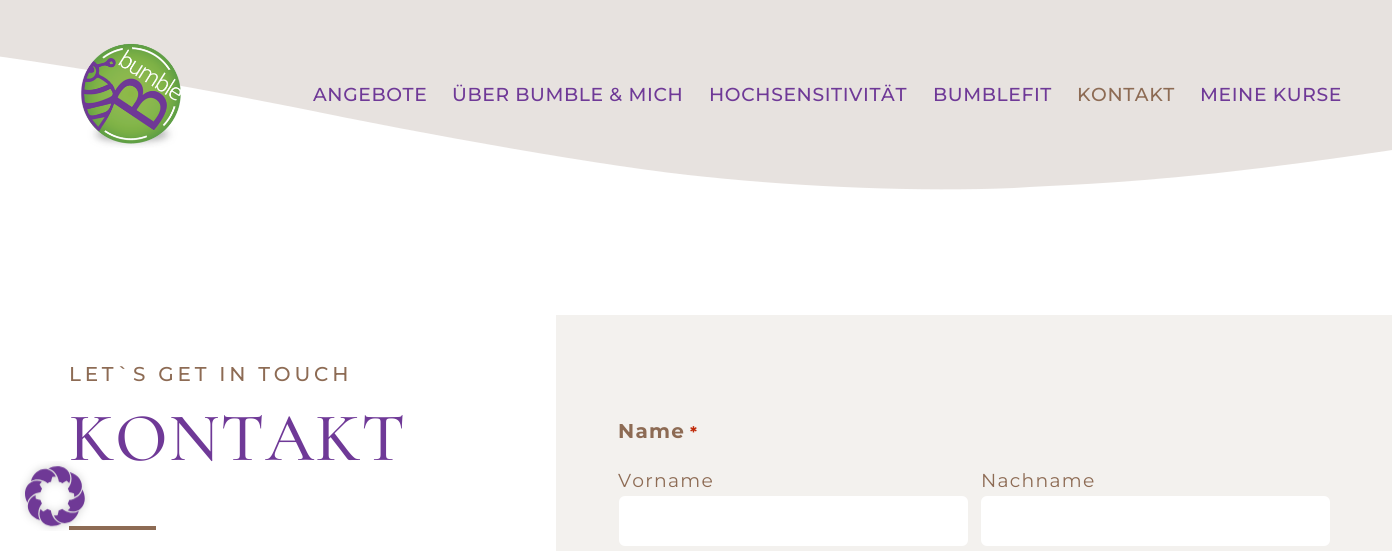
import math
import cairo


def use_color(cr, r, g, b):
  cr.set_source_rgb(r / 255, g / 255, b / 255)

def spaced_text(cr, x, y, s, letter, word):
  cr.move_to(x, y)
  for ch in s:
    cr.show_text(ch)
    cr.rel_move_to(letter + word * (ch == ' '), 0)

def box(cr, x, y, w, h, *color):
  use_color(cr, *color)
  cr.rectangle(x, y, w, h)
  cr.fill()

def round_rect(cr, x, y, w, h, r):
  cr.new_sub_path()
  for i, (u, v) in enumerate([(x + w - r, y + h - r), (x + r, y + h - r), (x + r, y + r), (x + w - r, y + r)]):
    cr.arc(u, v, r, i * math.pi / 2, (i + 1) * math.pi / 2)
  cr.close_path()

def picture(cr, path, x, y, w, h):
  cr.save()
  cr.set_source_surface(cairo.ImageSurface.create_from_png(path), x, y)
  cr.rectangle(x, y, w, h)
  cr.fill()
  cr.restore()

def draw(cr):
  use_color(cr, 255, 255, 255)
  cr.paint()
  use_color(cr, 231, 226, 223)
  cr.new_path()
  cr.move_to(-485, 12)
  cr.curve_to(-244, 22, -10, 47, 298, 108)
  cr.curve_to(418, 133, 611, 168, 707, 177)
  cr.curve_to(803, 187, 921, 192, 1014, 188)
  cr.curve_to(1055, 185, 1106, 185, 1218, 173)
  cr.curve_to(1328, 161, 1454, 141, 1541, 126)
  cr.curve_to(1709, 95, 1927, 84, 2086, 82)
  cr.curve_to(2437, 79, 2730, 142, 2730, 142)
  cr.line_to(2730, -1)
  cr.line_to(-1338, -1)
  cr.line_to(-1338, 66)
  cr.curve_to(-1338, 66, -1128, 28, -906, 16)
  cr.curve_to(-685, 5, -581, 8, -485, 12)
  cr.close_path()
  cr.fill()
  picture(cr, "img_01.png", 81, 43, 100, 105)
  box(cr, 69, 526, 87, 4, 141, 107, 84)
  box(cr, 556, 315, 836, 236, 243, 241, 238)
  use_color(cr, 255, 255, 255)
  round_rect(cr, 619, 496, 349, 50, 6)
  cr.fill()
  round_rect(cr, 981, 496, 349, 50, 6)
  cr.fill()
  cr.select_font_face("Montserrat Thin")
  cr.set_font_size(18.75)
  use_color(cr, 111, 57, 151)
  spaced_text(cr, 313, 101, "ANGEBOTE", 0.6, 0)
  spaced_text(cr, 452, 101, "ÜBER BUMBLE & MICH", 0.6, 0)
  spaced_text(cr, 709, 101, "HOCHSENSITIVITÄT", 0.6, 0)
  spaced_text(cr, 933, 101, "BUMBLEFIT", 0.6, 0)
  use_color(cr, 141, 107, 84)
  spaced_text(cr, 1077, 101, "KONTAKT", 0.6, 0)
  use_color(cr, 111, 57, 151)
  spaced_text(cr, 1200, 101, "MEINE KURSE", 0.6, 0)
  cr.set_font_size(20)
  use_color(cr, 141, 107, 84)
  spaced_text(cr, 69, 381, "LET`S GET IN TOUCH", 3.75, 0)
  cr.select_font_face("Cormorant Garamond Medium")
  cr.set_font_size(68.75)
  use_color(cr, 111, 57, 151)
  spaced_text(cr, 69, 460, "KONTAKT", 1.25, 0)
  cr.select_font_face("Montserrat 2 Thin")
  cr.set_font_size(20)
  use_color(cr, 141, 107, 84)
  spaced_text(cr, 618, 438, "Name", 1.25, 0)
  cr.set_font_size(16)
  use_color(cr, 192, 43, 10)
  spaced_text(cr, 690, 438, "*", 1.25, 0)
  cr.select_font_face("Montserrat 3 Thin")
  cr.set_font_size(18.75)
  use_color(cr, 141, 107, 84)
  spaced_text(cr, 618, 487, "Vorname", 1.25, 0)
  spaced_text(cr, 981, 487, "Nachname", 1.25, 0)
  picture(cr, "img_02.png", 20, 461, 70, 70)


surface = cairo.ImageSurface(cairo.FORMAT_RGB24, 1392, 551)
cr = cairo.Context(surface)
options = cairo.FontOptions()
options.set_hint_metrics(cairo.HINT_METRICS_OFF)
options.set_hint_style(cairo.HINT_STYLE_NONE)
cr.set_font_options(options)
cr.set_miter_limit(4)
draw(cr)
surface.write_to_png("out.png")
